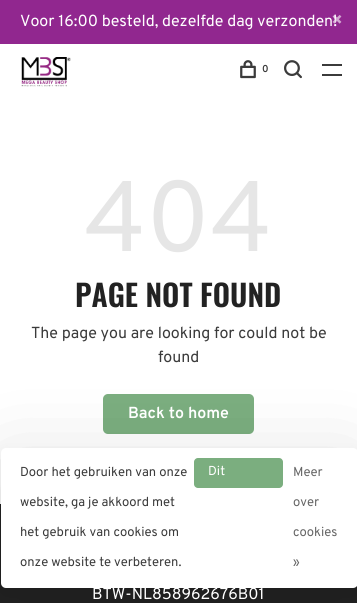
import math
import cairo


def use_color(cr, r, g, b):
  cr.set_source_rgb(r / 255, g / 255, b / 255)

def text(cr, x, y, s, family, size, color, bold=False, italic=False):
  cr.select_font_face(family, cairo.FONT_SLANT_ITALIC if italic else cairo.FONT_SLANT_NORMAL, cairo.FONT_WEIGHT_BOLD if bold else cairo.FONT_WEIGHT_NORMAL)
  cr.set_font_size(size)
  use_color(cr, *color)
  cr.move_to(x, y)
  cr.show_text(s)

def box(cr, x, y, w, h, *color):
  use_color(cr, *color)
  cr.rectangle(x, y, w, h)
  cr.fill()

def round_rect(cr, x, y, w, h, r):
  cr.new_sub_path()
  for i, (u, v) in enumerate([(x + w - r, y + h - r), (x + r, y + h - r), (x + r, y + r), (x + w - r, y + r)]):
    cr.arc(u, v, r, i * math.pi / 2, (i + 1) * math.pi / 2)
  cr.close_path()

def shadow(cr, x, y, w, h, r, blur, alpha):
  cr.push_group_with_content(cairo.CONTENT_ALPHA)
  cr.set_operator(cairo.OPERATOR_SOURCE)
  for i in range(15, -16, -2):
    e = blur * i / 6
    if min(w, h) + 2 * e > 0:
      cr.set_source_rgba(0, 0, 0, alpha * math.erfc((i - 1) / 8.5) / 2)
      round_rect(cr, x - e, y - e, w + 2 * e, h + 2 * e, max(0, min(r + e + blur * .6, min(w, h) / 2 + e)))
      cr.fill()
  cr.mask(cr.pop_group())

def picture(cr, path, x, y, w, h):
  cr.save()
  cr.set_source_surface(cairo.ImageSurface.create_from_png(path), x, y)
  cr.rectangle(x, y, w, h)
  cr.fill()
  cr.restore()

def draw(cr):
  use_color(cr, 255, 255, 255)
  cr.paint()
  box(cr, 0, 0, 357, 44, 145, 39, 143)
  picture(cr, "img_02.png", 21, 57, 50, 30)
  picture(cr, "img_03.png", 240, 60, 16, 19)
  picture(cr, "img_04.png", 284, 60, 18, 19)
  box(cr, 322, 64, 20, 2, 59, 59, 59)
  box(cr, 322, 74, 20, 2, 59, 59, 59)
  use_color(cr, 123, 174, 127)
  round_rect(cr, 103, 394, 151, 40, 5)
  cr.fill()
  box(cr, 0, 505, 357, 98, 34, 34, 34)
  box(cr, 0, 504, 1, 1, 31, 31, 31)
  use_color(cr, 0, 0, 0)
  shadow(cr, 1, 454, 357, 140, 5, 7.5, 0.05)
  shadow(cr, 7, 468, 345, 128, 0, 43, 0.15)
  use_color(cr, 255, 255, 255)
  round_rect(cr, 1, 448, 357, 140, 5)
  cr.fill()
  use_color(cr, 123, 174, 127)
  round_rect(cr, 194, 458, 89, 30, 4)
  cr.fill()
  text(cr, 20, 26, "Voor 16:00 besteld, dezelfde dag verzonden!", "Overpass", 16, (255, 255, 255))
  picture(cr, "img_01.png", 332, 15, 10, 9)
  text(cr, 262, 72, "0", "Overpass SemiBold", 10, (59, 59, 59))
  text(cr, 84, 251, "404", "Overpass", 100, (230, 230, 230))
  text(cr, 75, 307, "PAGE NOT FOUND", "Oswald SemiBold", 30, (34, 34, 34))
  text(cr, 31, 338, "The page you are looking for could not be", "Overpass", 16, (59, 59, 59))
  text(cr, 158, 362, "found", "Overpass", 16, (59, 59, 59))
  text(cr, 128, 418, "Back to home", "Overpass SemiBold", 16, (255, 255, 255))
  text(cr, 20, 476, "Door het gebruiken van onze", "Overpass", 13, (59, 59, 59))
  text(cr, 208, 475, "Dit", "Overpass", 13, (255, 255, 255))
  text(cr, 293, 476, "Meer", "Overpass", 13, (102, 102, 102))
  text(cr, 293, 506, "over", "Overpass", 13, (102, 102, 102))
  text(cr, 293, 536, "cookies", "Overpass", 13, (102, 102, 102))
  text(cr, 293, 566, "»", "Overpass", 13, (102, 102, 102))
  text(cr, 20, 506, "website, ga je akkoord met", "Overpass", 13, (59, 59, 59))
  text(cr, 20, 536, "het gebruik van cookies om", "Overpass", 13, (59, 59, 59))
  text(cr, 20, 566, "onze website te verbeteren.", "Overpass", 13, (59, 59, 59))
  text(cr, 92, 599, "BTW-NL858962676B01", "Overpass", 16, (255, 255, 255))


surface = cairo.ImageSurface(cairo.FORMAT_RGB24, 357, 603)
cr = cairo.Context(surface)
options = cairo.FontOptions()
options.set_hint_metrics(cairo.HINT_METRICS_OFF)
options.set_hint_style(cairo.HINT_STYLE_NONE)
cr.set_font_options(options)
cr.set_miter_limit(4)
draw(cr)
surface.write_to_png("out.png")
